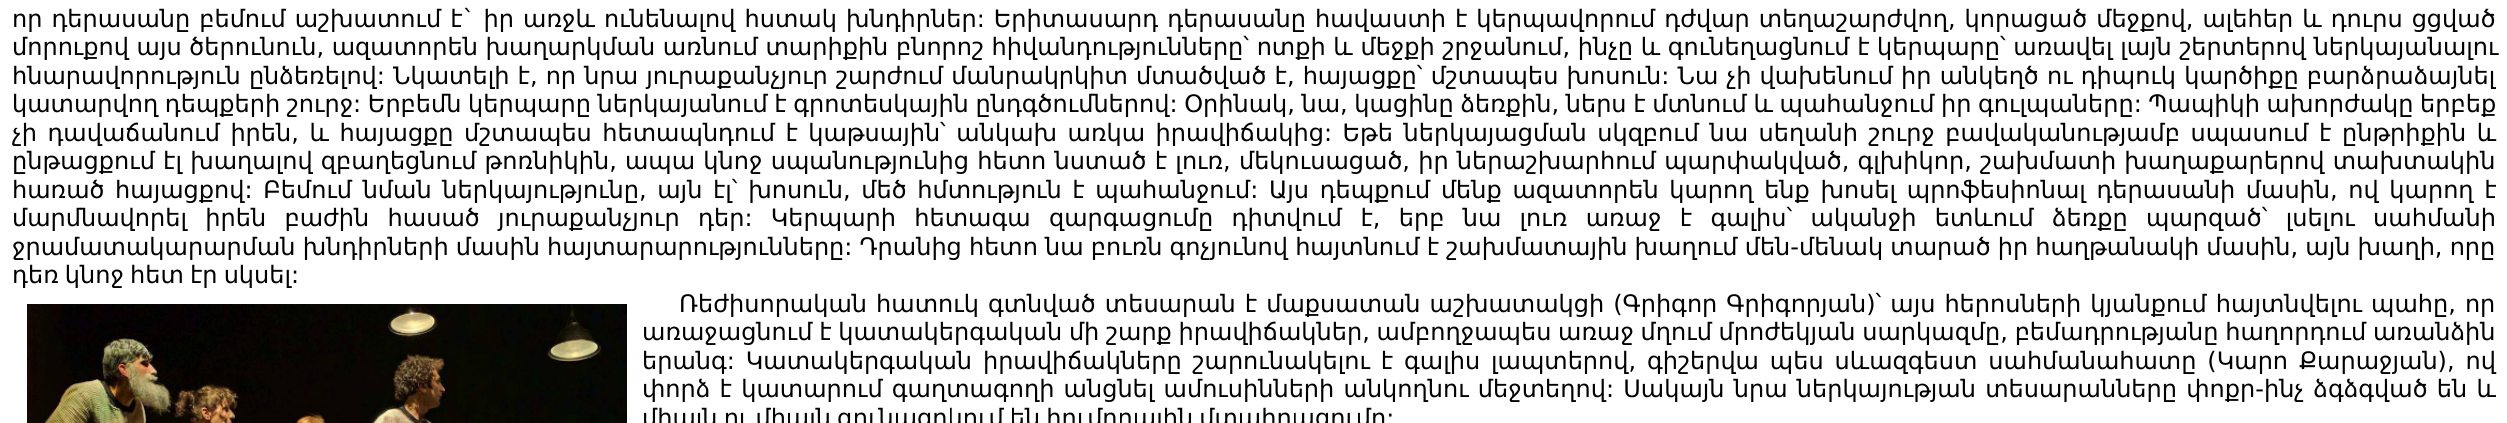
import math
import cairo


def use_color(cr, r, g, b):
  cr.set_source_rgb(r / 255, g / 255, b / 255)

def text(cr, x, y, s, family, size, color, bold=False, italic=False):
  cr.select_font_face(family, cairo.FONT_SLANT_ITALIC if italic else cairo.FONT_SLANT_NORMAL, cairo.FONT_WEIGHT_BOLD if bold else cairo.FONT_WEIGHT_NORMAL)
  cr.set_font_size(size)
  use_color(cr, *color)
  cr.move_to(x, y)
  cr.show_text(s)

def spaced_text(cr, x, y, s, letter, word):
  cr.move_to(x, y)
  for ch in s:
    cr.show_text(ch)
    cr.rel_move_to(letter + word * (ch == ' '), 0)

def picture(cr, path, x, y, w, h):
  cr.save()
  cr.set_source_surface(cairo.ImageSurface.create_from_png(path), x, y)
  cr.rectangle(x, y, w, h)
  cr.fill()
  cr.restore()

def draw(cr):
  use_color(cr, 255, 255, 255)
  cr.paint()
  picture(cr, "img_01.png", 27, 304, 600, 119)
  cr.select_font_face("DejaVu Sans")
  cr.set_font_size(24)
  use_color(cr, 0, 0, 0)
  spaced_text(cr, 12, 27, "որ դերասանը բեմում աշխատում է` իր առջև ունենալով հստակ խնդիրներ: Երիտասարդ դերասանը հավաստի է կերպավորում դժվար տեղաշարժվող, կորացած մեջքով, ալեհեր և դուրս ցցված", 0, 1.4)
  text(cr, 12, 55, "մորուքով այս ծերունուն, ազատորեն խաղարկման առնում տարիքին բնորոշ հիվանդությունները՝ ոտքի և մեջքի շրջանում, ինչը և գունեղացնում է կերպարը՝ առավել լայն շերտերով ներկայանալու", "DejaVu Sans", 24, (0, 0, 0))
  spaced_text(cr, 12, 84, "հնարավորություն ընձեռելով: Նկատելի է, որ նրա յուրաքանչյուր շարժում մանրակրկիտ մտածված է, հայացքը՝ մշտապես խոսուն: Նա չի վախենում իր անկեղծ ու դիպուկ կարծիքը բարձրաձայնել", 0, 0.5)
  spaced_text(cr, 12, 112, "կատարվող դեպքերի շուրջ: Երբեմն կերպարը ներկայանում է գրոտեսկային ընդգծումներով: Օրինակ, նա, կացինը ձեռքին, ներս է մտնում և պահանջում իր գուլպաները: Պապիկի ախորժակը երբեք", 0, -1)
  spaced_text(cr, 12, 141, "չի դավաճանում իրեն, և հայացքը մշտապես հետապնդում է կաթսային՝ անկախ առկա իրավիճակից: Եթե ներկայացման սկզբում նա սեղանի շուրջ բավականությամբ սպասում է ընթրիքին և", 0, 2.9)
  spaced_text(cr, 12, 169, "ընթացքում էլ խաղալով զբաղեցնում թոռնիկին, ապա կնոջ սպանությունից հետո նստած է լուռ, մեկուսացած, իր ներաշխարհում պարփակված, գլխիկոր, շախմատի խաղաքարերով տախտակին", 0, 0.6)
  spaced_text(cr, 12, 198, "հառած հայացքով: Բեմում նման ներկայությունը, այն էլ՝ խոսուն, մեծ հմտություն է պահանջում: Այս դեպքում մենք ազատորեն կարող ենք խոսել պրոֆեսիոնալ դերասանի մասին, ով կարող է", 0, 3)
  spaced_text(cr, 12, 226, "մարմնավորել իրեն բաժին հասած յուրաքանչյուր դեր: Կերպարի հետագա զարգացումը դիտվում է, երբ նա լուռ առաջ է գալիս՝ ականջի ետևում ձեռքը պարզած՝ լսելու սահմանի", 0, 10.7)
  spaced_text(cr, 12, 255, "ջրամատակարարման խնդիրների մասին հայտարարությունները: Դրանից հետո նա բուռն գոչյունով հայտնում է շախմատային խաղում մեն-մենակ տարած իր հաղթանակի մասին, այն խաղի, որը", 0, -0.5)
  spaced_text(cr, 12, 283, "դեռ կնոջ հետ էր սկսել:", 0, -1.5)
  spaced_text(cr, 679, 312, "Ռեժիսորական հատուկ գտնված տեսարան է մաքսատան աշխատակցի (Գրիգոր Գրիգորյան)՝ այս հերոսների կյանքում հայտնվելու պահը, որ", 0, 1.4)
  spaced_text(cr, 642, 340, "առաջացնում է կատակերգական մի շարք իրավիճակներ, ամբողջապես առաջ մղում մրոժեկյան սարկազմը, բեմադրությանը հաղորդում առանձին", 0, -0.9)
  spaced_text(cr, 642, 369, "երանգ: Կատակերգական իրավիճակները շարունակելու է գալիս լապտերով, գիշերվա պես սևազգեստ սահմանահատը (Կարո Քարաջյան), ով", 0, 3.25)
  spaced_text(cr, 642, 397, "փորձ է կատարում գաղտագողի անցնել ամուսինների անկողնու մեջտեղով: Սակայն նրա ներկայության տեսարանները փոքր-ինչ ձգձգված են և", 0, 1.6)
  spaced_text(cr, 642, 426, "միայն ու միայն գունազրկում են հումորային մտահղացումը:", 0, -1.5)


surface = cairo.ImageSurface(cairo.FORMAT_RGB24, 2507, 423)
cr = cairo.Context(surface)
options = cairo.FontOptions()
options.set_hint_metrics(cairo.HINT_METRICS_OFF)
options.set_hint_style(cairo.HINT_STYLE_NONE)
cr.set_font_options(options)
cr.set_miter_limit(4)
draw(cr)
surface.write_to_png("out.png")
